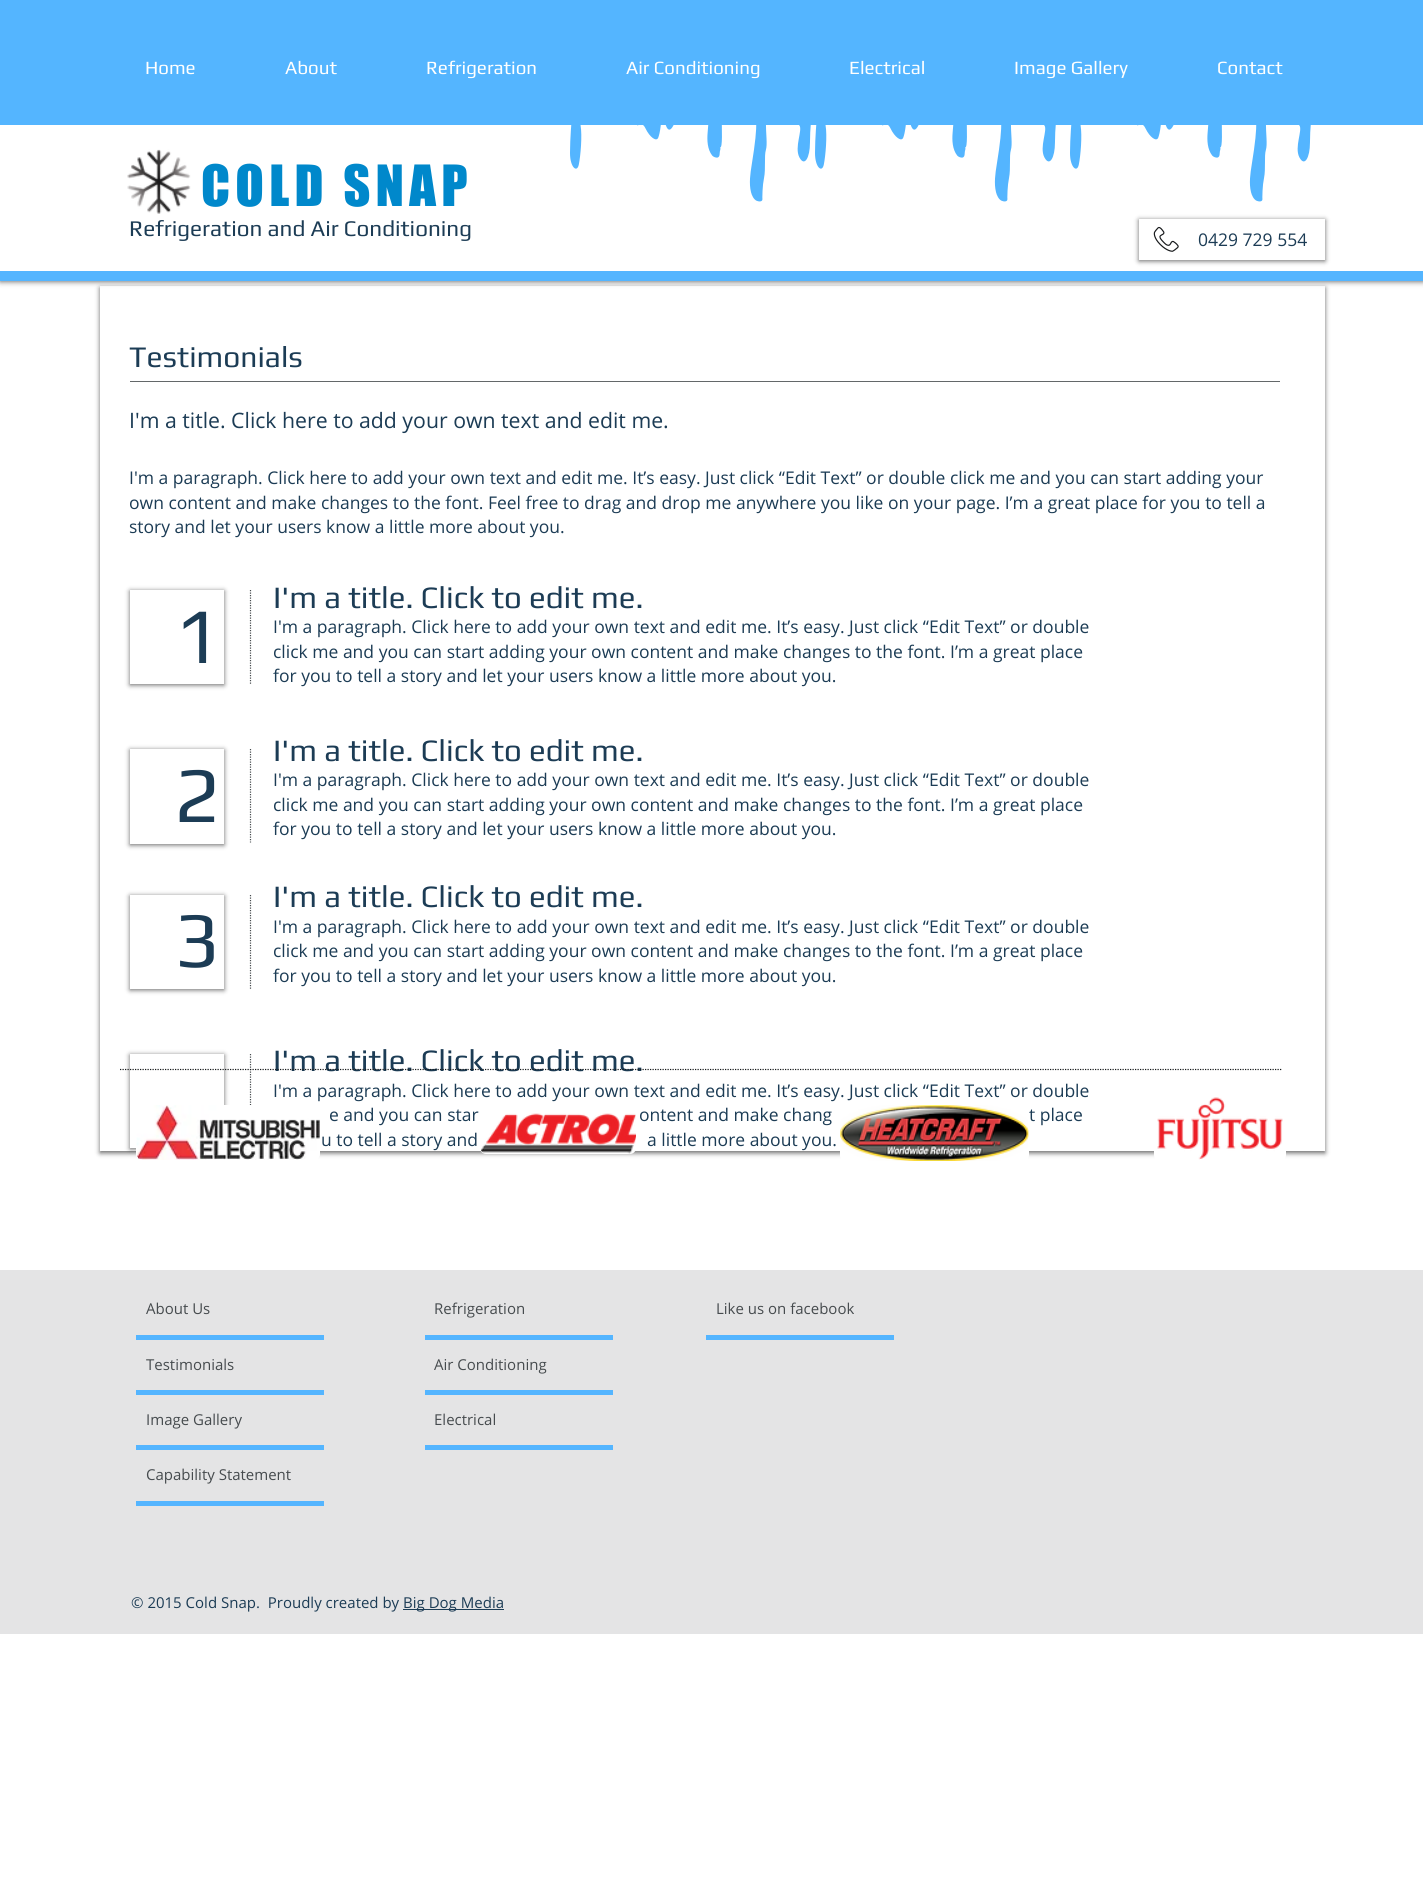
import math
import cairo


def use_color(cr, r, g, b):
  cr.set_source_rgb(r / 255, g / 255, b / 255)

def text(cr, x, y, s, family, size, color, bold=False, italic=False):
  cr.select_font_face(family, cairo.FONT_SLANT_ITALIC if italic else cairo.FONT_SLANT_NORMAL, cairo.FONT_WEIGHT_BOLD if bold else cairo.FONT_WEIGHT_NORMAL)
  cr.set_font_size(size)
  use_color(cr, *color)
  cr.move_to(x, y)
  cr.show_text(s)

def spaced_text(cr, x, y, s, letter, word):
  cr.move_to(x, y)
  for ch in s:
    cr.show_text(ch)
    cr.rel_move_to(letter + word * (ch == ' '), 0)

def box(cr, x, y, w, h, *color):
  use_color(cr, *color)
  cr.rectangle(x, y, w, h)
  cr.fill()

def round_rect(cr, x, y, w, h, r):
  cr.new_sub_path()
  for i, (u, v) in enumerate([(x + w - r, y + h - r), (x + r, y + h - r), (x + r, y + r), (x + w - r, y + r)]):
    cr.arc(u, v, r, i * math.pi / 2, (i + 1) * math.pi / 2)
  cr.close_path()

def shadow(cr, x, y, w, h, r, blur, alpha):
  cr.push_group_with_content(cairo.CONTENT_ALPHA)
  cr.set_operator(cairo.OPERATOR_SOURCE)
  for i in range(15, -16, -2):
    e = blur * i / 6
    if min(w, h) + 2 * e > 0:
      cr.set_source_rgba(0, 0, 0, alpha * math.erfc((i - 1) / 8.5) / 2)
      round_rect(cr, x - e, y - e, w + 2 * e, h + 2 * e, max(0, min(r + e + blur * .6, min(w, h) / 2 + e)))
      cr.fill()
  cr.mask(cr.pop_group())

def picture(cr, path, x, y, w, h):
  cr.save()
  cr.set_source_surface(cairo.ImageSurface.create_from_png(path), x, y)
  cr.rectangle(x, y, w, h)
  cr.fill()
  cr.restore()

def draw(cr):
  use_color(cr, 255, 255, 255)
  cr.paint()
  use_color(cr, 0, 0, 0)
  shadow(cr, 100, 288, 1225, 865, 0, 2.5, 0.6)
  box(cr, 100, 286, 1225, 865, 255, 255, 255)
  use_color(cr, 0, 0, 0)
  shadow(cr, 0, 0, 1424, 281, 0, 3, 0.7)
  box(cr, 0, 0, 1423, 281, 84, 181, 255)
  box(cr, 0, 125, 1423, 146, 255, 255, 255)
  picture(cr, "img_01.png", 127, 149, 64, 65)
  picture(cr, "img_02.png", 570, 125, 241, 77)
  picture(cr, "img_02.png", 815, 125, 241, 77)
  picture(cr, "img_02.png", 1070, 125, 241, 77)
  cr.save()
  cr.set_fill_rule(cairo.FILL_RULE_EVEN_ODD)
  cr.new_path()
  cr.move_to(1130, 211)
  cr.line_to(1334, 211)
  cr.line_to(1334, 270)
  cr.line_to(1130, 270)
  cr.close_path()
  cr.move_to(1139, 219)
  cr.line_to(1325, 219)
  cr.line_to(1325, 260)
  cr.line_to(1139, 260)
  cr.close_path()
  cr.clip()
  use_color(cr, 0, 0, 0)
  shadow(cr, 1139, 220, 186, 41, 0, 2.5, 0.6)
  cr.restore()
  picture(cr, "img_03.png", 1153, 226, 26, 26)
  box(cr, 130, 381, 1150, 1, 99, 103, 105)
  cr.save()
  cr.set_fill_rule(cairo.FILL_RULE_EVEN_ODD)
  cr.new_path()
  cr.move_to(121, 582)
  cr.line_to(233, 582)
  cr.line_to(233, 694)
  cr.line_to(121, 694)
  cr.close_path()
  cr.move_to(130, 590)
  cr.line_to(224, 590)
  cr.line_to(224, 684)
  cr.line_to(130, 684)
  cr.close_path()
  cr.clip()
  use_color(cr, 0, 0, 0)
  shadow(cr, 130, 591, 94, 94, 0, 2.5, 0.6)
  cr.restore()
  cr.set_source_rgba(1, 1, 1, 0.22)
  cr.rectangle(130, 591, 94, 93)
  cr.fill()
  cr.new_path()
  cr.move_to(250.5, 590)
  cr.line_to(250.5, 684)
  use_color(cr, 70, 75, 78)
  cr.set_line_width(1.2)
  cr.set_dash([1.25, 1.25])
  cr.stroke()
  cr.save()
  cr.set_fill_rule(cairo.FILL_RULE_EVEN_ODD)
  cr.new_path()
  cr.move_to(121, 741)
  cr.line_to(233, 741)
  cr.line_to(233, 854)
  cr.line_to(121, 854)
  cr.close_path()
  cr.move_to(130, 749)
  cr.line_to(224, 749)
  cr.line_to(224, 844)
  cr.line_to(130, 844)
  cr.close_path()
  cr.clip()
  use_color(cr, 0, 0, 0)
  shadow(cr, 130, 750, 94, 95, 0, 2.5, 0.6)
  cr.restore()
  cr.set_source_rgba(1, 1, 1, 0.22)
  cr.rectangle(130, 750, 94, 94)
  cr.fill()
  cr.new_path()
  cr.move_to(250.5, 749)
  cr.line_to(250.5, 842.5)
  use_color(cr, 70, 75, 78)
  cr.stroke()
  cr.save()
  cr.set_fill_rule(cairo.FILL_RULE_EVEN_ODD)
  cr.new_path()
  cr.move_to(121, 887)
  cr.line_to(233, 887)
  cr.line_to(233, 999)
  cr.line_to(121, 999)
  cr.close_path()
  cr.move_to(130, 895)
  cr.line_to(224, 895)
  cr.line_to(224, 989)
  cr.line_to(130, 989)
  cr.close_path()
  cr.clip()
  use_color(cr, 0, 0, 0)
  shadow(cr, 130, 896, 94, 94, 0, 2.5, 0.6)
  cr.restore()
  cr.set_source_rgba(1, 1, 1, 0.22)
  cr.rectangle(130, 896, 94, 93)
  cr.fill()
  cr.new_path()
  cr.move_to(250.5, 895)
  cr.line_to(250.5, 989)
  use_color(cr, 70, 75, 78)
  cr.stroke()
  cr.save()
  cr.set_fill_rule(cairo.FILL_RULE_EVEN_ODD)
  cr.new_path()
  cr.move_to(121, 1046)
  cr.line_to(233, 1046)
  cr.line_to(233, 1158)
  cr.line_to(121, 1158)
  cr.close_path()
  cr.move_to(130, 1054)
  cr.line_to(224, 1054)
  cr.line_to(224, 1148)
  cr.line_to(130, 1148)
  cr.close_path()
  cr.clip()
  use_color(cr, 0, 0, 0)
  shadow(cr, 130, 1055, 94, 94, 0, 2.5, 0.6)
  cr.restore()
  cr.set_source_rgba(1, 1, 1, 0.22)
  cr.rectangle(130, 1055, 94, 93)
  cr.fill()
  cr.new_path()
  cr.move_to(250.5, 1054)
  cr.line_to(250.5, 1147.5)
  use_color(cr, 70, 75, 78)
  cr.stroke()
  use_color(cr, 255, 255, 255)
  round_rect(cr, 136, 1105, 184, 55, 6)
  cr.fill()
  picture(cr, "img_04.png", 136, 1105, 184, 55)
  round_rect(cr, 480, 1106, 156, 48, 6)
  cr.fill()
  picture(cr, "img_05.png", 481, 1113, 155, 41)
  round_rect(cr, 840, 1105, 189, 56, 6)
  cr.fill()
  picture(cr, "img_06.png", 840, 1105, 189, 56)
  round_rect(cr, 1154, 1095, 132, 66, 6)
  cr.fill()
  picture(cr, "img_07.png", 1157, 1097, 126, 63)
  box(cr, 0, 1270, 1423, 364, 228, 228, 229)
  box(cr, 136, 1335, 188, 5, 84, 181, 255)
  box(cr, 425, 1335, 188, 5, 84, 181, 255)
  box(cr, 706, 1335, 188, 5, 84, 181, 255)
  box(cr, 136, 1390, 188, 5, 84, 181, 255)
  box(cr, 425, 1390, 188, 5, 84, 181, 255)
  box(cr, 136, 1445, 188, 5, 84, 181, 255)
  box(cr, 425, 1445, 188, 5, 84, 181, 255)
  box(cr, 136, 1501, 188, 5, 84, 181, 255)
  box(cr, 403, 1609, 101, 1, 28, 60, 85)
  text(cr, 145, 74, "Home", "Play", 18.75, (255, 255, 255))
  text(cr, 285, 74, "About", "Play", 18.75, (255, 255, 255))
  text(cr, 426, 74, "Refrigeration", "Play", 18.75, (255, 255, 255))
  text(cr, 626, 74, "Air Conditioning", "Play", 18.75, (255, 255, 255))
  text(cr, 849, 74, "Electrical", "Play", 18.75, (255, 255, 255))
  text(cr, 1014, 74, "Image Gallery", "Play", 18.75, (255, 255, 255))
  text(cr, 1217, 74, "Contact", "Play", 18.75, (255, 255, 255))
  cr.select_font_face("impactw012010")
  cr.set_font_size(52.5)
  use_color(cr, 0, 136, 203)
  spaced_text(cr, 201, 206, "COLD SNAP", 5.25, 0)
  text(cr, 129, 236, "Refrigeration and Air Conditioning", "Play", 22.5, (28, 60, 85))
  text(cr, 1198, 246, "0429 729 554", "Open Sans", 17.5, (28, 60, 85))
  text(cr, 129, 367, "Testimonials", "Play", 30, (28, 60, 85))
  text(cr, 129, 428, "I'm a title. Click here to add your own text and edit me.", "Open Sans", 21.25, (28, 60, 85))
  text(cr, 129, 484, "I'm a paragraph. Click here to add your own text and edit me. It’s easy. Just click “Edit Text” or double click me and you can start adding your", "Open Sans", 17.5, (28, 60, 85))
  text(cr, 129, 509, "own content and make changes to the font. Feel free to drag and drop me anywhere you like on your page. I’m a great place for you to tell a", "Open Sans", 17.5, (28, 60, 85))
  text(cr, 129, 533, "story and let your users know a little more about you.", "Open Sans", 17.5, (28, 60, 85))
  text(cr, 174, 663, "1", "Play", 79, (28, 60, 85))
  text(cr, 273, 608, "I'm a title. Click to edit me.", "Play", 31.25, (28, 60, 85))
  text(cr, 273, 633, "I'm a paragraph. Click here to add your own text and edit me. It’s easy. Just click “Edit Text” or double", "Open Sans", 17.5, (28, 60, 85))
  text(cr, 273, 658, "click me and you can start adding your own content and make changes to the font. I’m a great place", "Open Sans", 17.5, (28, 60, 85))
  text(cr, 273, 682, "for you to tell a story and let your users know a little more about you.", "Open Sans", 17.5, (28, 60, 85))
  text(cr, 174, 822, "2", "Play", 79, (28, 60, 85))
  text(cr, 273, 761, "I'm a title. Click to edit me.", "Play", 31.25, (28, 60, 85))
  text(cr, 273, 786, "I'm a paragraph. Click here to add your own text and edit me. It’s easy. Just click “Edit Text” or double", "Open Sans", 17.5, (28, 60, 85))
  text(cr, 273, 811, "click me and you can start adding your own content and make changes to the font. I’m a great place", "Open Sans", 17.5, (28, 60, 85))
  text(cr, 273, 835, "for you to tell a story and let your users know a little more about you.", "Open Sans", 17.5, (28, 60, 85))
  text(cr, 174, 967, "3", "Play", 79, (28, 60, 85))
  text(cr, 273, 907, "I'm a title. Click to edit me.", "Play", 31.25, (28, 60, 85))
  text(cr, 273, 933, "I'm a paragraph. Click here to add your own text and edit me. It’s easy. Just click “Edit Text” or double", "Open Sans", 17.5, (28, 60, 85))
  text(cr, 273, 957, "click me and you can start adding your own content and make changes to the font. I’m a great place", "Open Sans", 17.5, (28, 60, 85))
  text(cr, 273, 982, "for you to tell a story and let your users know a little more about you.", "Open Sans", 17.5, (28, 60, 85))
  text(cr, 273, 1071, "I'm a title. Click to edit me.", "Play", 31.25, (28, 60, 85))
  text(cr, 273, 1097, "I'm a paragraph. Click here to add your own text and edit me. It’s easy. Just click “Edit Text” or double", "Open Sans", 17.5, (28, 60, 85))
  text(cr, 329, 1121, "e and you can star", "Open Sans", 17.5, (28, 60, 85))
  text(cr, 639, 1121, "ontent and make chang", "Open Sans", 17.5, (28, 60, 85))
  text(cr, 1029, 1121, "t place", "Open Sans", 17.5, (28, 60, 85))
  text(cr, 321, 1146, "u to tell a story and", "Open Sans", 17.5, (28, 60, 85))
  text(cr, 647, 1146, "a little more about you.", "Open Sans", 17.5, (28, 60, 85))
  cr.new_path()
  cr.move_to(120, 1069.5)
  cr.line_to(1282.5, 1069.5)
  use_color(cr, 24, 26, 28)
  cr.stroke()
  text(cr, 146, 1314, "About Us", "Open Sans", 15, (70, 75, 78))
  text(cr, 434, 1314, "Refrigeration", "Open Sans", 15, (70, 75, 78))
  text(cr, 716, 1314, "Like us on facebook", "Open Sans", 15, (70, 75, 78))
  text(cr, 146, 1370, "Testimonials", "Open Sans", 15, (70, 75, 78))
  text(cr, 434, 1370, "Air Conditioning", "Open Sans", 15, (70, 75, 78))
  text(cr, 146, 1425, "Image Gallery", "Open Sans", 15, (70, 75, 78))
  text(cr, 434, 1425, "Electrical", "Open Sans", 15, (70, 75, 78))
  text(cr, 146, 1480, "Capability Statement", "Open Sans", 15, (70, 75, 78))
  text(cr, 131, 1608, "© 2015 Cold Snap.  Proudly created by", "Open Sans", 15, (28, 60, 85))
  text(cr, 403, 1608, "Big Dog Media", "Open Sans", 15, (28, 60, 85))


surface = cairo.ImageSurface(cairo.FORMAT_RGB24, 1423, 1881)
cr = cairo.Context(surface)
options = cairo.FontOptions()
options.set_hint_metrics(cairo.HINT_METRICS_OFF)
options.set_hint_style(cairo.HINT_STYLE_NONE)
cr.set_font_options(options)
cr.set_miter_limit(4)
draw(cr)
surface.write_to_png("out.png")
